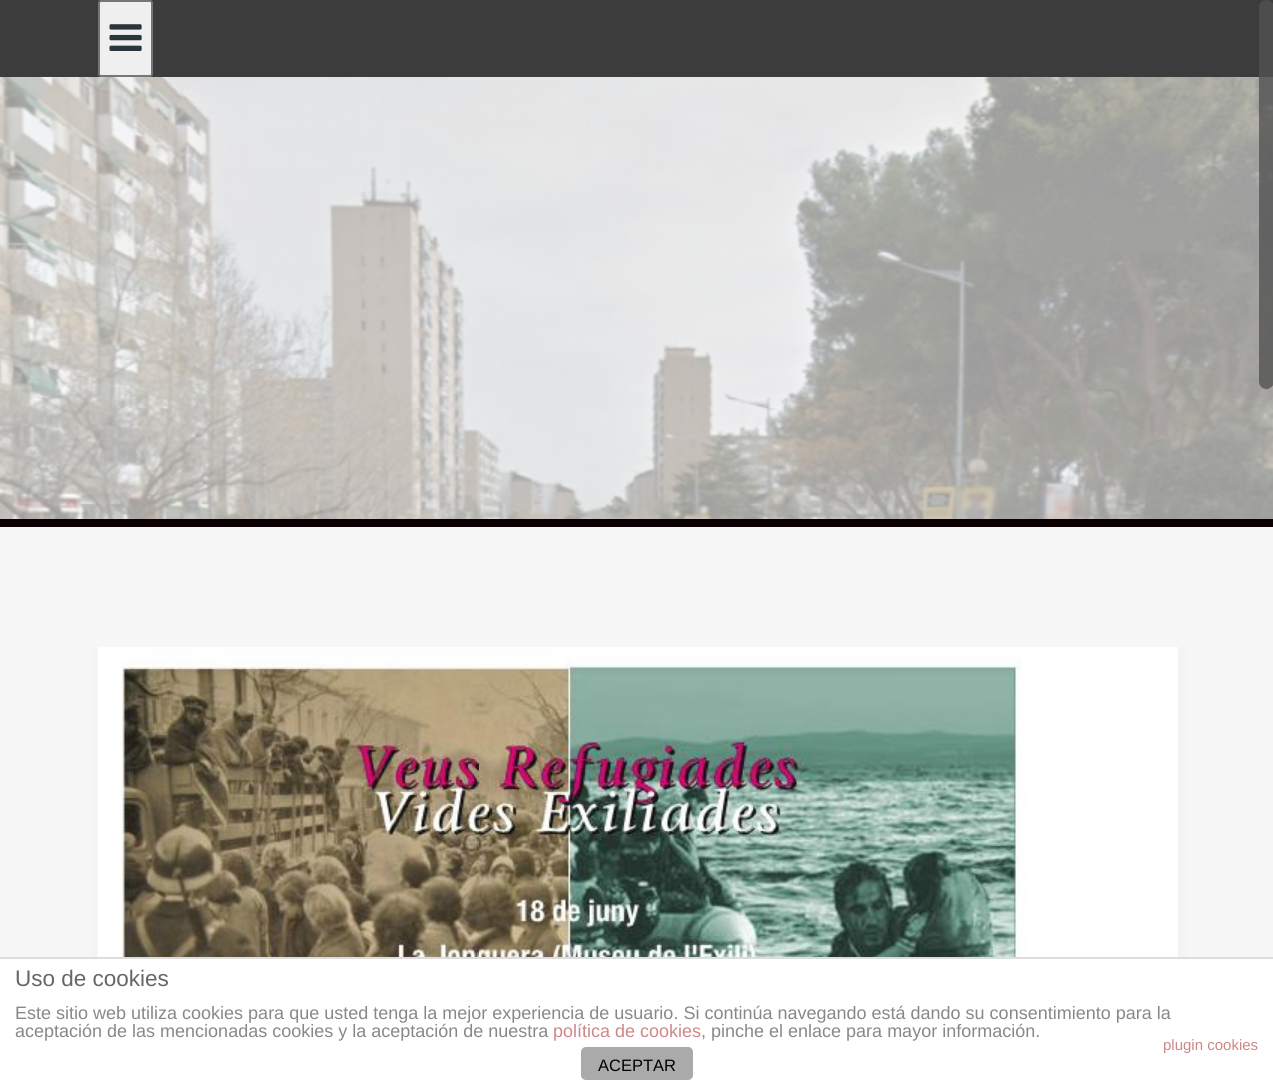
import math
import cairo


def use_color(cr, r, g, b):
  cr.set_source_rgb(r / 255, g / 255, b / 255)

def text(cr, x, y, s, family, size, color, bold=False, italic=False):
  cr.select_font_face(family, cairo.FONT_SLANT_ITALIC if italic else cairo.FONT_SLANT_NORMAL, cairo.FONT_WEIGHT_BOLD if bold else cairo.FONT_WEIGHT_NORMAL)
  cr.set_font_size(size)
  use_color(cr, *color)
  cr.move_to(x, y)
  cr.show_text(s)

def box(cr, x, y, w, h, *color):
  use_color(cr, *color)
  cr.rectangle(x, y, w, h)
  cr.fill()

def round_rect(cr, x, y, w, h, r):
  cr.new_sub_path()
  for i, (u, v) in enumerate([(x + w - r, y + h - r), (x + r, y + h - r), (x + r, y + r), (x + w - r, y + r)]):
    cr.arc(u, v, r, i * math.pi / 2, (i + 1) * math.pi / 2)
  cr.close_path()

def shadow(cr, x, y, w, h, r, blur, alpha):
  cr.push_group_with_content(cairo.CONTENT_ALPHA)
  cr.set_operator(cairo.OPERATOR_SOURCE)
  for i in range(15, -16, -2):
    e = blur * i / 6
    if min(w, h) + 2 * e > 0:
      cr.set_source_rgba(0, 0, 0, alpha * math.erfc((i - 1) / 8.5) / 2)
      round_rect(cr, x - e, y - e, w + 2 * e, h + 2 * e, max(0, min(r + e + blur * .6, min(w, h) / 2 + e)))
      cr.fill()
  cr.mask(cr.pop_group())

def picture(cr, path, x, y, w, h):
  cr.save()
  cr.set_source_surface(cairo.ImageSurface.create_from_png(path), x, y)
  cr.rectangle(x, y, w, h)
  cr.fill()
  cr.restore()

def draw(cr):
  use_color(cr, 247, 247, 247)
  cr.paint()
  box(cr, 0, 77, 1273, 442, 255, 255, 255)
  box(cr, 0, 519, 1273, 8, 12, 0, 3)
  box(cr, 0, 0, 1273, 77, 60, 60, 60)
  use_color(cr, 239, 239, 239)
  round_rect(cr, 99, 1, 53, 75, 2)
  cr.fill_preserve()
  use_color(cr, 118, 118, 118)
  cr.stroke()
  picture(cr, "img_01.png", 109, 24, 33, 27)
  picture(cr, "img_02.png", 0, 77, 1273, 442)
  cr.save()
  cr.rectangle(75, 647, 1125, 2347)
  cr.clip()
  use_color(cr, 130, 142, 148)
  shadow(cr, 98, 647, 1080, 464, 0, 7.5, 0.1)
  cr.restore()
  box(cr, 1028, 647, 150, 310, 255, 255, 255)
  picture(cr, "img_03.png", 97, 647, 931, 310)
  cr.set_source_rgba(0.322, 0.322, 0.322, 0.78)
  round_rect(cr, 1259, 0, 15, 389, 7.5)
  cr.fill()
  box(cr, 0, 959, 1273, 129, 255, 255, 255)
  box(cr, 0, 957, 1273, 2, 221, 221, 221)
  use_color(cr, 170, 170, 170)
  round_rect(cr, 581, 1047, 112, 33, 5)
  cr.fill()
  text(cr, 15, 986, "Uso de cookies", "Liberation Sans", 22.5, (102, 102, 102))
  text(cr, 15, 1019, "Este sitio web utiliza cookies para que usted tenga la mejor experiencia de usuario. Si continúa navegando está dando su consentimiento para la", "Liberation Sans", 18, (136, 136, 136))
  text(cr, 15, 1037, "aceptación de las mencionadas cookies y la aceptación de nuestra", "Liberation Sans", 18, (136, 136, 136))
  text(cr, 553, 1037, "política de cookies", "Liberation Sans", 18, (204, 136, 136))
  text(cr, 701, 1037, ", pinche el enlace para mayor información.", "Liberation Sans", 18, (136, 136, 136))
  text(cr, 1163, 1050, "plugin cookies", "Liberation Sans", 15, (204, 136, 136))
  text(cr, 598, 1071, "ACEPTAR", "Liberation Sans", 16.5, (0, 0, 0))


surface = cairo.ImageSurface(cairo.FORMAT_RGB24, 1273, 1088)
cr = cairo.Context(surface)
options = cairo.FontOptions()
options.set_hint_metrics(cairo.HINT_METRICS_OFF)
options.set_hint_style(cairo.HINT_STYLE_NONE)
cr.set_font_options(options)
cr.set_miter_limit(4)
draw(cr)
surface.write_to_png("out.png")
